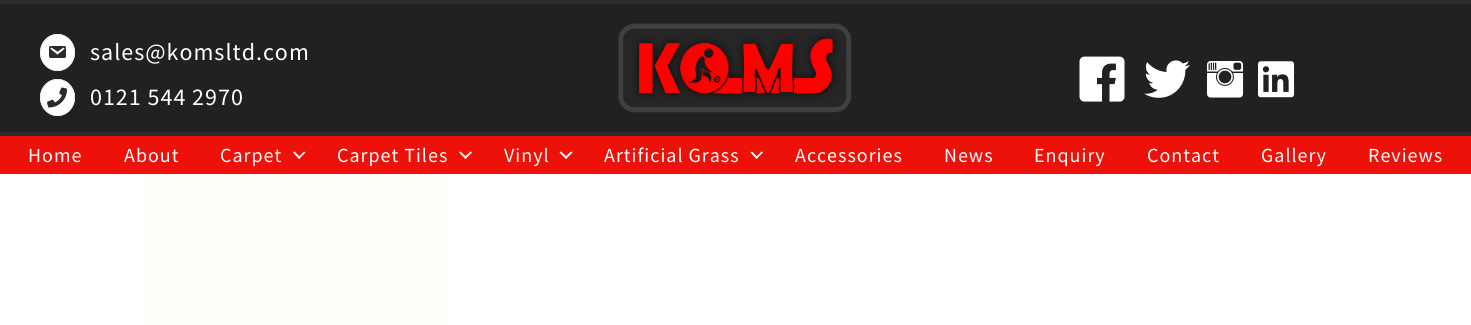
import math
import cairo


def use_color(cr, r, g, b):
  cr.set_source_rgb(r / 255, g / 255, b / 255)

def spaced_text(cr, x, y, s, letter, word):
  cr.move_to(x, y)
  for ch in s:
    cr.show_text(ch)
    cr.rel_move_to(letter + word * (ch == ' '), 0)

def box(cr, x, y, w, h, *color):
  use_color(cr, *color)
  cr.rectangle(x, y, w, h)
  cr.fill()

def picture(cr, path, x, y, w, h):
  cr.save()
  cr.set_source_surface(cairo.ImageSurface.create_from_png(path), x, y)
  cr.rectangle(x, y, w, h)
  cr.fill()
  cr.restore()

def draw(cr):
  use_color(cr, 255, 255, 255)
  cr.paint()
  box(cr, 0, 4, 1471, 128, 33, 33, 33)
  box(cr, 0, 0, 1471, 4, 43, 43, 43)
  box(cr, 0, 132, 1471, 4, 43, 43, 43)
  use_color(cr, 255, 255, 255)
  cr.new_path()
  cr.move_to(57.5, 34)
  cr.curve_to(67, 34, 75, 42.5, 75, 52.5)
  cr.curve_to(75, 62.5, 67, 71, 57.5, 71)
  cr.curve_to(48, 71, 40, 62.5, 40, 52.5)
  cr.curve_to(40, 42.5, 48, 34, 57.5, 34)
  cr.close_path()
  cr.fill()
  cr.new_path()
  cr.move_to(57.5, 34.5)
  cr.curve_to(67, 34.5, 74.5, 42.5, 74.5, 52.5)
  cr.curve_to(74.5, 62.5, 67, 70.5, 57.5, 70.5)
  cr.curve_to(48, 70.5, 40.5, 62.5, 40.5, 52.5)
  cr.curve_to(40.5, 42.5, 48, 34.5, 57.5, 34.5)
  cr.close_path()
  use_color(cr, 235, 235, 235)
  cr.set_line_width(1)
  cr.stroke()
  picture(cr, "img_01.png", 49, 46, 17, 12)
  use_color(cr, 255, 255, 255)
  cr.new_path()
  cr.move_to(57.5, 79)
  cr.curve_to(67, 79, 75, 87.5, 75, 97.5)
  cr.curve_to(75, 107.5, 67, 116, 57.5, 116)
  cr.curve_to(48, 116, 40, 107.5, 40, 97.5)
  cr.curve_to(40, 87.5, 48, 79, 57.5, 79)
  cr.close_path()
  cr.fill()
  cr.new_path()
  cr.move_to(57.5, 79.5)
  cr.curve_to(67, 79.5, 74.5, 87.5, 74.5, 97.5)
  cr.curve_to(74.5, 107.5, 67, 115.5, 57.5, 115.5)
  cr.curve_to(48, 115.5, 40.5, 107.5, 40.5, 97.5)
  cr.curve_to(40.5, 87.5, 48, 79.5, 57.5, 79.5)
  cr.close_path()
  use_color(cr, 235, 235, 235)
  cr.stroke()
  picture(cr, "img_02.png", 47, 87, 20, 21)
  picture(cr, "img_03.png", 618, 23, 234, 90)
  picture(cr, "img_04.png", 1079, 56, 46, 46)
  picture(cr, "img_05.png", 1144, 60, 46, 38)
  picture(cr, "img_06.png", 1207, 61, 37, 37)
  picture(cr, "img_07.png", 1258, 61, 37, 37)
  box(cr, 0, 136, 1471, 38, 237, 17, 9)
  use_color(cr, 255, 255, 255)
  cr.new_path()
  cr.move_to(304, 151.5)
  cr.line_to(305.5, 152.5)
  cr.line_to(299, 159)
  cr.line_to(298, 157.5)
  cr.close_path()
  cr.fill()
  cr.new_path()
  cr.move_to(294.5, 151.5)
  cr.line_to(300.5, 157.5)
  cr.line_to(299, 159)
  cr.line_to(293, 152.5)
  cr.close_path()
  cr.fill()
  cr.new_path()
  cr.move_to(470.5, 151.5)
  cr.line_to(472, 152.5)
  cr.line_to(465.5, 159)
  cr.line_to(464, 157.5)
  cr.close_path()
  cr.fill()
  cr.new_path()
  cr.move_to(460.5, 151.5)
  cr.line_to(467, 157.5)
  cr.line_to(465.5, 159)
  cr.line_to(459, 152.5)
  cr.close_path()
  cr.fill()
  cr.new_path()
  cr.move_to(571, 151.5)
  cr.line_to(572.5, 152.5)
  cr.line_to(566, 159)
  cr.line_to(564.5, 157.5)
  cr.close_path()
  cr.fill()
  cr.new_path()
  cr.move_to(561, 151.5)
  cr.line_to(567.5, 157.5)
  cr.line_to(566, 159)
  cr.line_to(559.5, 152.5)
  cr.close_path()
  cr.fill()
  cr.new_path()
  cr.move_to(761.5, 151.5)
  cr.line_to(763, 152.5)
  cr.line_to(756.5, 159)
  cr.line_to(755.5, 157.5)
  cr.close_path()
  cr.fill()
  cr.new_path()
  cr.move_to(752, 151.5)
  cr.line_to(758, 157.5)
  cr.line_to(756.5, 159)
  cr.line_to(750.5, 152.5)
  cr.close_path()
  cr.fill()
  box(cr, 146, 174, 300, 151, 255, 254, 249)
  cr.select_font_face("Source Sans Pro")
  cr.set_font_size(24)
  use_color(cr, 255, 255, 255)
  spaced_text(cr, 90, 60, "sales@komsltd.com", 1, 0)
  spaced_text(cr, 90, 105, "0121 544 2970", 1, 0)
  cr.set_font_size(20)
  spaced_text(cr, 28, 162, "Home", 1, 0)
  spaced_text(cr, 124, 162, "About", 1, 0)
  spaced_text(cr, 220, 162, "Carpet", 1, 0)
  spaced_text(cr, 337, 162, "Carpet Tiles", 1, 0)
  spaced_text(cr, 504, 162, "Vinyl", 1, 0)
  spaced_text(cr, 604, 162, "Artificial Grass", 1, 0)
  spaced_text(cr, 795, 162, "Accessories", 1, 0)
  spaced_text(cr, 944, 162, "News", 1, 0)
  spaced_text(cr, 1034, 162, "Enquiry", 1, 0)
  spaced_text(cr, 1147, 162, "Contact", 1, 0)
  spaced_text(cr, 1261, 162, "Gallery", 1, 0)
  spaced_text(cr, 1368, 162, "Reviews", 1, 0)


surface = cairo.ImageSurface(cairo.FORMAT_RGB24, 1471, 325)
cr = cairo.Context(surface)
options = cairo.FontOptions()
options.set_hint_metrics(cairo.HINT_METRICS_OFF)
options.set_hint_style(cairo.HINT_STYLE_NONE)
cr.set_font_options(options)
cr.set_miter_limit(4)
draw(cr)
surface.write_to_png("out.png")
